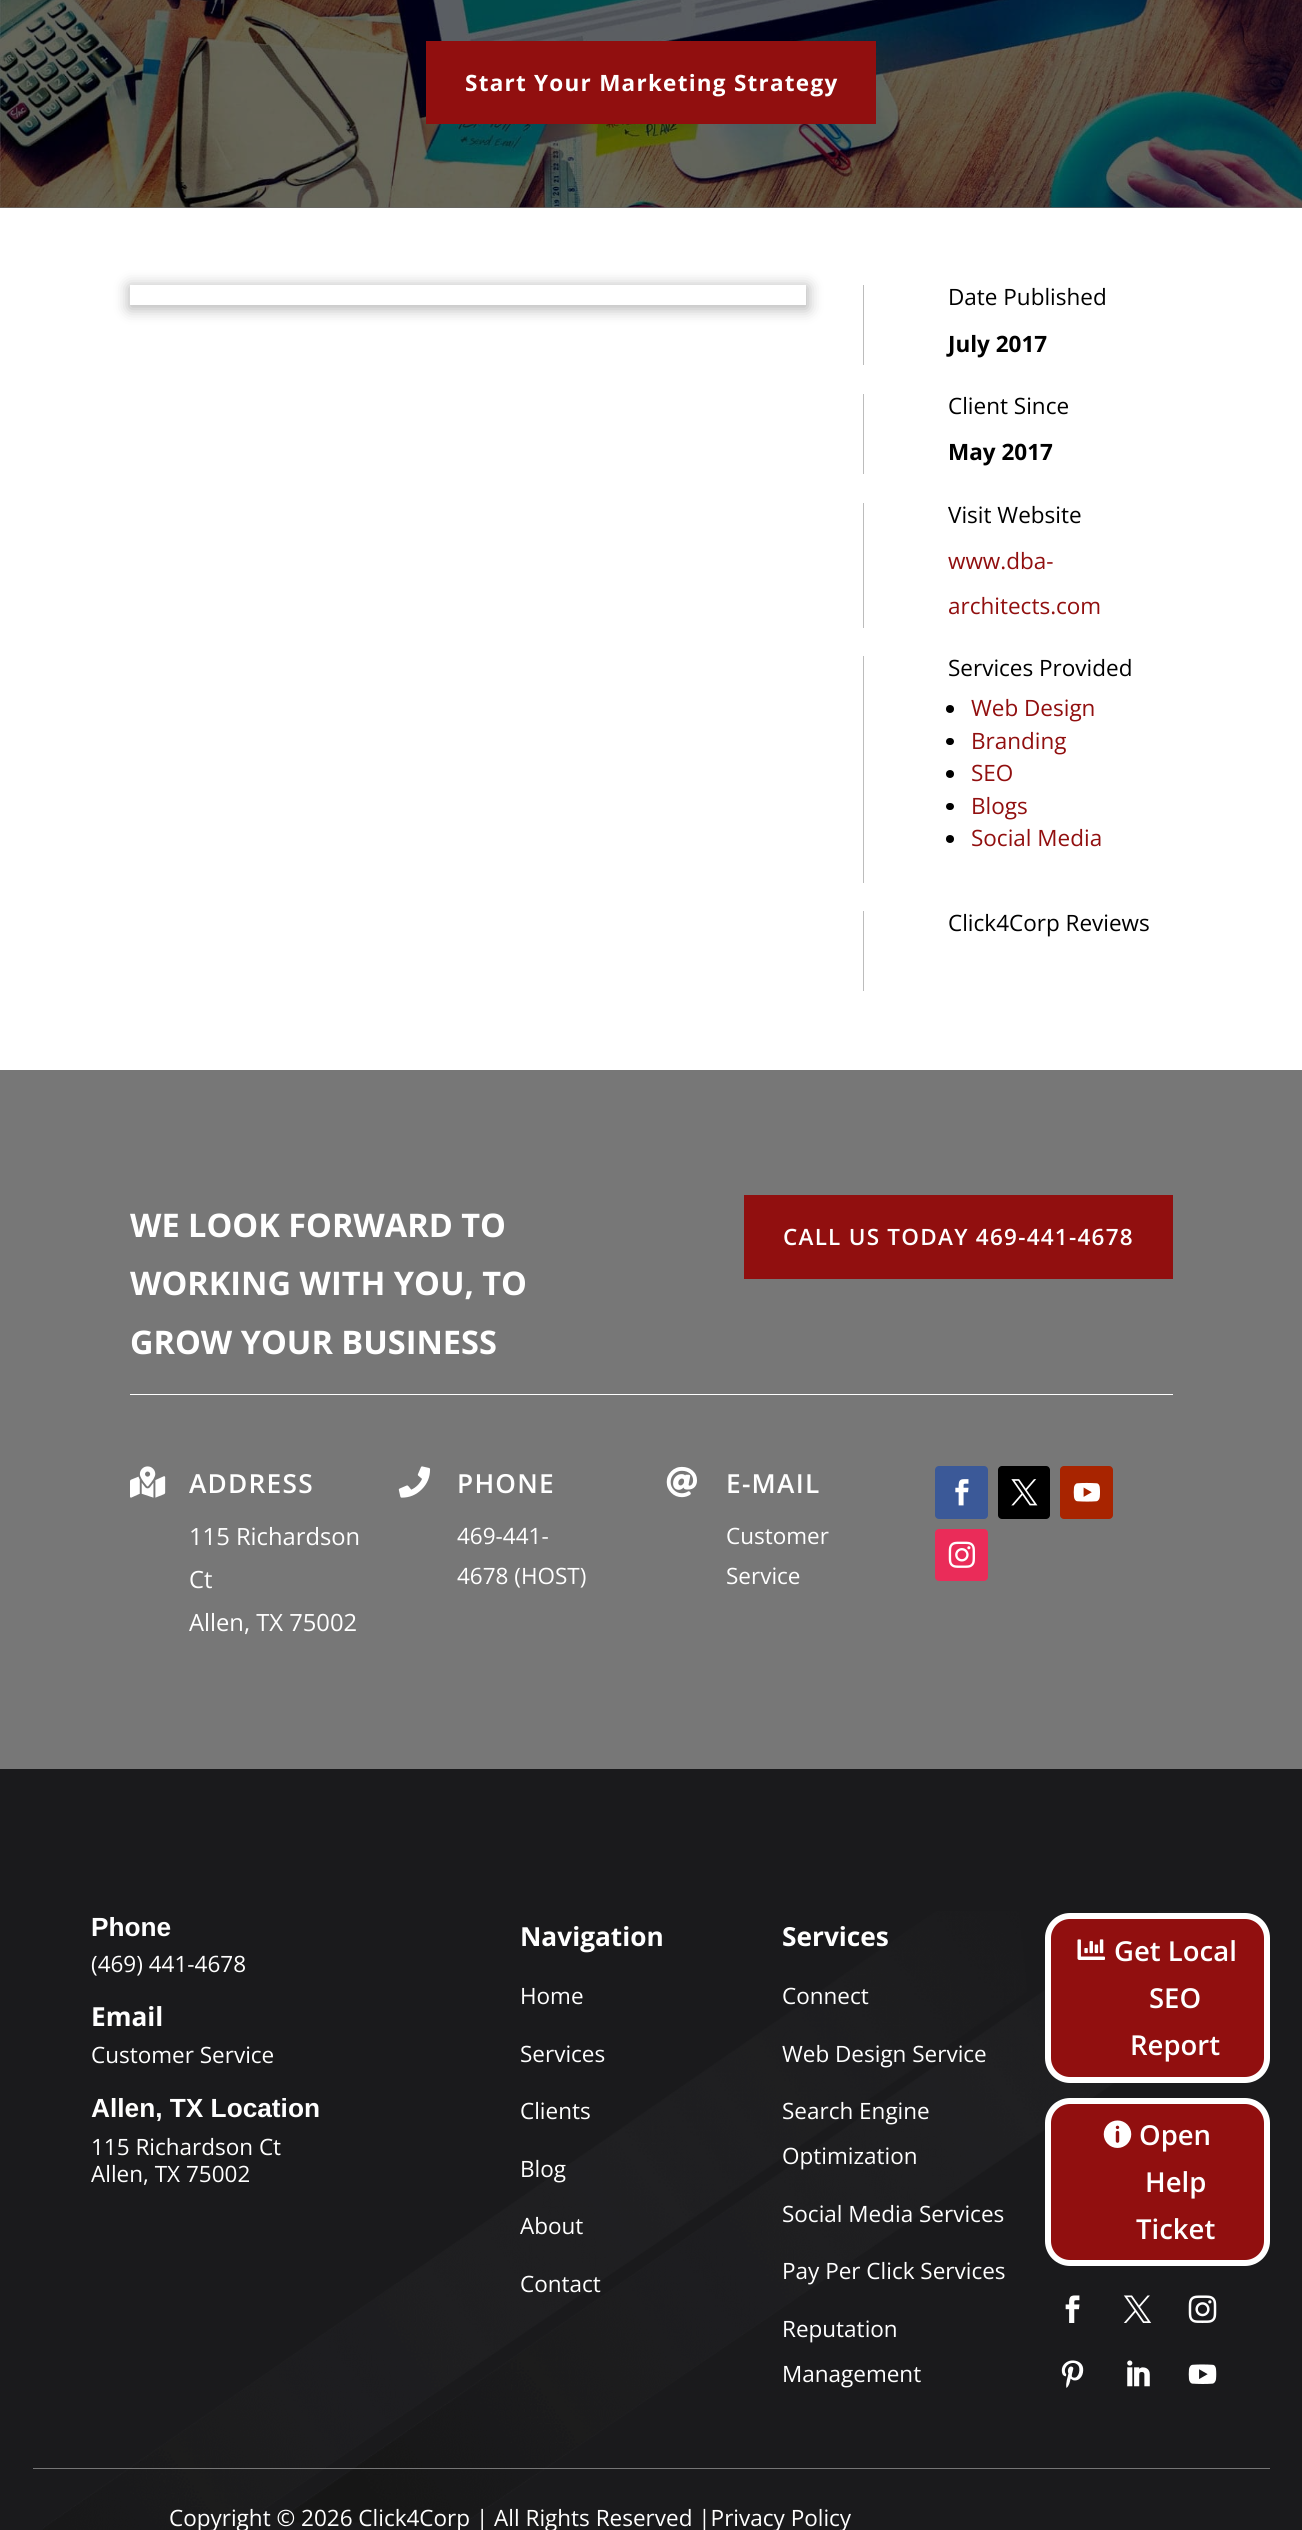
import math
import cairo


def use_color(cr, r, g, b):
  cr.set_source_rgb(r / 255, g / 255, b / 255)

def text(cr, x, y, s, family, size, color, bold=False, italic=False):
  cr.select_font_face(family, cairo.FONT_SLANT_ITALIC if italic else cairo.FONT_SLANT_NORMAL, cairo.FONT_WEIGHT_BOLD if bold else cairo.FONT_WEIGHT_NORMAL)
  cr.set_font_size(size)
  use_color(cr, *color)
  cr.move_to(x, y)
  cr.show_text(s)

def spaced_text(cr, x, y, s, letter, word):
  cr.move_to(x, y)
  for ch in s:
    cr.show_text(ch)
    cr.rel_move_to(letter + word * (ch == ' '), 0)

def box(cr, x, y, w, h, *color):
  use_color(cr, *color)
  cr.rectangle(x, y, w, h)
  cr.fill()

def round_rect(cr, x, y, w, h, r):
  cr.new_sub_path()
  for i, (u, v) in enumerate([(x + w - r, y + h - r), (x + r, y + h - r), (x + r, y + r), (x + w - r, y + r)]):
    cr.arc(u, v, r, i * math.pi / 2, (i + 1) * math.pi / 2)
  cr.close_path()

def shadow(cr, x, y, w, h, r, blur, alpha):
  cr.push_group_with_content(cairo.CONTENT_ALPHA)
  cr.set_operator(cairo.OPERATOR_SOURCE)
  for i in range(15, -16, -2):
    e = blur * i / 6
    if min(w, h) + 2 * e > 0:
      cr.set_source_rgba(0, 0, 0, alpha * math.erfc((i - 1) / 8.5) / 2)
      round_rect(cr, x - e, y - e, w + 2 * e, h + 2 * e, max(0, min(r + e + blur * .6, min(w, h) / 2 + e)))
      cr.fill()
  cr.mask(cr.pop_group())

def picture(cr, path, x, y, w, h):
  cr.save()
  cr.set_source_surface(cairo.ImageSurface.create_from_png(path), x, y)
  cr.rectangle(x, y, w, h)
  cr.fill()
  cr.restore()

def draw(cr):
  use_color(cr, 255, 255, 255)
  cr.paint()
  box(cr, 0, 207, 1302, 1, 102, 102, 102)
  picture(cr, "img_01.png", 0, 0, 1302, 208)
  box(cr, 426, 41, 450, 83, 145, 15, 15)
  cr.save()
  cr.set_fill_rule(cairo.FILL_RULE_EVEN_ODD)
  cr.new_path()
  cr.move_to(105, 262)
  cr.line_to(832, 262)
  cr.line_to(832, 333)
  cr.line_to(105, 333)
  cr.close_path()
  cr.move_to(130, 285)
  cr.line_to(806, 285)
  cr.line_to(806, 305)
  cr.line_to(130, 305)
  cr.close_path()
  cr.clip()
  use_color(cr, 0, 0, 0)
  shadow(cr, 129, 286, 679, 23, 0, 7.5, 0.3)
  cr.restore()
  box(cr, 863, 285, 1, 80, 188, 188, 188)
  box(cr, 863, 394, 1, 80, 188, 188, 188)
  box(cr, 863, 503, 1, 125, 188, 188, 188)
  box(cr, 863, 656, 1, 227, 188, 188, 188)
  use_color(cr, 0, 0, 0)
  cr.arc(950, 709, 4, 0, 2 * math.pi)
  cr.fill()
  round_rect(cr, 946, 738, 8, 7, 3.5)
  cr.fill()
  cr.arc(950, 774, 4, 0, 2 * math.pi)
  cr.fill()
  round_rect(cr, 946, 803, 8, 7, 3.5)
  cr.fill()
  cr.arc(950, 839, 4, 0, 2 * math.pi)
  cr.fill()
  box(cr, 863, 911, 1, 80, 188, 188, 188)
  box(cr, 0, 1070, 1302, 699, 119, 119, 119)
  box(cr, 744, 1195, 429, 84, 145, 15, 15)
  box(cr, 130, 1394, 1043, 1, 255, 255, 255)
  picture(cr, "img_02.png", 130, 1466, 36, 32)
  picture(cr, "img_03.png", 398, 1466, 33, 32)
  picture(cr, "img_04.png", 666, 1466, 31, 32)
  use_color(cr, 59, 89, 152)
  round_rect(cr, 935, 1466, 53, 53, 4)
  cr.fill()
  picture(cr, "img_05.png", 955, 1479, 14, 27)
  use_color(cr, 0, 0, 0)
  round_rect(cr, 998, 1466, 52, 53, 4)
  cr.fill()
  picture(cr, "img_06.png", 1011, 1479, 27, 27)
  use_color(cr, 168, 36, 0)
  round_rect(cr, 1060, 1466, 53, 53, 4)
  cr.fill()
  picture(cr, "img_07.png", 1073, 1482, 27, 20)
  use_color(cr, 234, 44, 89)
  round_rect(cr, 935, 1529, 53, 52, 4)
  cr.fill()
  picture(cr, "img_08.png", 948, 1541, 27, 27)
  box(cr, 0, 1769, 1302, 761, 26, 26, 28)
  picture(cr, "img_09.png", 43, 1911, 1198, 619)
  box(cr, 33, 2468, 1237, 1, 117, 117, 117)
  use_color(cr, 145, 15, 15)
  round_rect(cr, 1048, 1916, 219, 164, 22)
  cr.fill_preserve()
  use_color(cr, 255, 255, 255)
  cr.set_line_width(6)
  cr.stroke()
  picture(cr, "img_10.png", 1077, 1939, 28, 21)
  use_color(cr, 145, 15, 15)
  round_rect(cr, 1048, 2101, 219, 162, 22)
  cr.fill_preserve()
  use_color(cr, 255, 255, 255)
  cr.stroke()
  picture(cr, "img_11.png", 1103, 2120, 29, 28)
  picture(cr, "img_12.png", 1065, 2295, 15, 28)
  picture(cr, "img_13.png", 1123, 2295, 29, 28)
  picture(cr, "img_14.png", 1188, 2295, 29, 28)
  picture(cr, "img_15.png", 1061, 2360, 23, 28)
  picture(cr, "img_16.png", 1127, 2360, 23, 27)
  picture(cr, "img_17.png", 1188, 2364, 29, 20)
  cr.select_font_face("Open Sans", cairo.FONT_SLANT_NORMAL, cairo.FONT_WEIGHT_BOLD)
  cr.set_font_size(22.5)
  spaced_text(cr, 465, 91, "Start Your Marketing Strategy", 1.25, 0)
  text(cr, 948, 305, "Date Published", "Open Sans", 22.5, (0, 0, 0))
  text(cr, 948, 352, "July 2017", "Open Sans", 22.5, (0, 0, 0), bold=True)
  text(cr, 948, 414, "Client Since", "Open Sans", 22.5, (0, 0, 0))
  text(cr, 948, 460, "May 2017", "Open Sans", 22.5, (0, 0, 0), bold=True)
  text(cr, 948, 523, "Visit Website", "Open Sans", 22.5, (0, 0, 0))
  text(cr, 948, 569, "www.dba-", "Open Sans", 22.5, (145, 15, 15))
  text(cr, 948, 614, "architects.com", "Open Sans", 22.5, (145, 15, 15))
  text(cr, 948, 676, "Services Provided", "Open Sans", 22.5, (0, 0, 0))
  text(cr, 971, 716, "Web Design", "Open Sans", 22.5, (145, 15, 15))
  text(cr, 971, 749, "Branding", "Open Sans", 22.5, (145, 15, 15))
  text(cr, 971, 781, "SEO", "Open Sans", 22.5, (145, 15, 15))
  text(cr, 971, 814, "Blogs", "Open Sans", 22.5, (145, 15, 15))
  text(cr, 971, 846, "Social Media", "Open Sans", 22.5, (145, 15, 15))
  text(cr, 948, 931, "Click4Corp Reviews", "Open Sans", 22.5, (0, 0, 0))
  text(cr, 130, 1237, "WE LOOK FORWARD TO", "Open Sans", 32.5, (255, 255, 255), bold=True)
  text(cr, 130, 1295, "WORKING WITH YOU, TO", "Open Sans", 32.5, (255, 255, 255), bold=True)
  text(cr, 130, 1354, "GROW YOUR BUSINESS", "Open Sans", 32.5, (255, 255, 255), bold=True)
  cr.select_font_face("Open Sans SemiBold")
  cr.set_font_size(22.5)
  spaced_text(cr, 783, 1245, "CALL US TODAY 469-441-4678", 1.25, 0)
  cr.set_font_size(26.25)
  spaced_text(cr, 189, 1493, "ADDRESS", 1.25, 0)
  text(cr, 189, 1545, "115 Richardson", "Open Sans", 23.75, (255, 255, 255))
  text(cr, 189, 1588, "Ct", "Open Sans", 23.75, (255, 255, 255))
  text(cr, 189, 1631, "Allen, TX 75002", "Open Sans", 23.75, (255, 255, 255))
  cr.select_font_face("Open Sans SemiBold")
  cr.set_font_size(26.25)
  spaced_text(cr, 457, 1493, "PHONE", 1.25, 0)
  text(cr, 457, 1544, "469-441-", "Open Sans", 22.5, (255, 255, 255))
  text(cr, 457, 1584, "4678 (HOST)", "Open Sans", 22.5, (255, 255, 255))
  cr.select_font_face("Open Sans SemiBold")
  cr.set_font_size(26.25)
  spaced_text(cr, 726, 1493, "E-MAIL", 1.25, 0)
  text(cr, 726, 1544, "Customer", "Open Sans", 22.5, (255, 255, 255))
  text(cr, 726, 1584, "Service", "Open Sans", 22.5, (255, 255, 255))
  text(cr, 91, 1936, "Phone", "Liberation Sans", 26.25, (255, 255, 255), bold=True)
  text(cr, 91, 1972, "(469) 441-4678", "Open Sans", 22.5, (255, 255, 255))
  text(cr, 91, 2026, "Email", "Open Sans", 26.25, (255, 255, 255), bold=True)
  text(cr, 91, 2063, "Customer Service", "Open Sans", 22.5, (255, 255, 255))
  text(cr, 91, 2117, "Allen, TX Location", "Liberation Sans", 26.25, (255, 255, 255), bold=True)
  text(cr, 91, 2155, "115 Richardson Ct", "Open Sans", 22.5, (255, 255, 255))
  text(cr, 91, 2182, "Allen, TX 75002", "Open Sans", 22.5, (255, 255, 255))
  text(cr, 520, 1946, "Navigation", "Open Sans", 26.25, (255, 255, 255), bold=True)
  text(cr, 520, 2004, "Home", "Open Sans", 22.5, (255, 255, 255))
  text(cr, 520, 2062, "Services", "Open Sans", 22.5, (255, 255, 255))
  text(cr, 520, 2119, "Clients", "Open Sans", 22.5, (255, 255, 255))
  text(cr, 520, 2177, "Blog", "Open Sans", 22.5, (255, 255, 255))
  text(cr, 520, 2234, "About", "Open Sans", 22.5, (255, 255, 255))
  text(cr, 520, 2292, "Contact", "Open Sans", 22.5, (255, 255, 255))
  text(cr, 782, 1946, "Services", "Open Sans", 26.25, (255, 255, 255), bold=True)
  text(cr, 782, 2004, "Connect", "Open Sans", 22.5, (255, 255, 255))
  text(cr, 782, 2062, "Web Design Service", "Open Sans", 22.5, (255, 255, 255))
  text(cr, 782, 2119, "Search Engine", "Open Sans", 22.5, (255, 255, 255))
  text(cr, 782, 2164, "Optimization", "Open Sans", 22.5, (255, 255, 255))
  text(cr, 782, 2222, "Social Media Services", "Open Sans", 22.5, (255, 255, 255))
  text(cr, 782, 2279, "Pay Per Click Services", "Open Sans", 22.5, (255, 255, 255))
  text(cr, 782, 2337, "Reputation", "Open Sans", 22.5, (255, 255, 255))
  text(cr, 782, 2382, "Management", "Open Sans", 22.5, (255, 255, 255))
  text(cr, 1114, 1961, "Get Local", "Open Sans SemiBold", 27.5, (255, 255, 255))
  text(cr, 1149, 2008, "SEO", "Open Sans SemiBold", 27.5, (255, 255, 255))
  text(cr, 1130, 2055, "Report", "Open Sans SemiBold", 27.5, (255, 255, 255))
  text(cr, 1139, 2145, "Open", "Open Sans SemiBold", 27.5, (255, 255, 255))
  text(cr, 1145, 2192, "Help", "Open Sans SemiBold", 27.5, (255, 255, 255))
  text(cr, 1136, 2239, "Ticket", "Open Sans SemiBold", 27.5, (255, 255, 255))
  text(cr, 169, 2526, "Copyright © 2026 Click4Corp | All Rights Reserved |Privacy Policy", "Open Sans", 22.5, (255, 255, 255))


surface = cairo.ImageSurface(cairo.FORMAT_RGB24, 1302, 2530)
cr = cairo.Context(surface)
options = cairo.FontOptions()
options.set_hint_metrics(cairo.HINT_METRICS_OFF)
options.set_hint_style(cairo.HINT_STYLE_NONE)
cr.set_font_options(options)
cr.set_miter_limit(4)
draw(cr)
surface.write_to_png("out.png")
